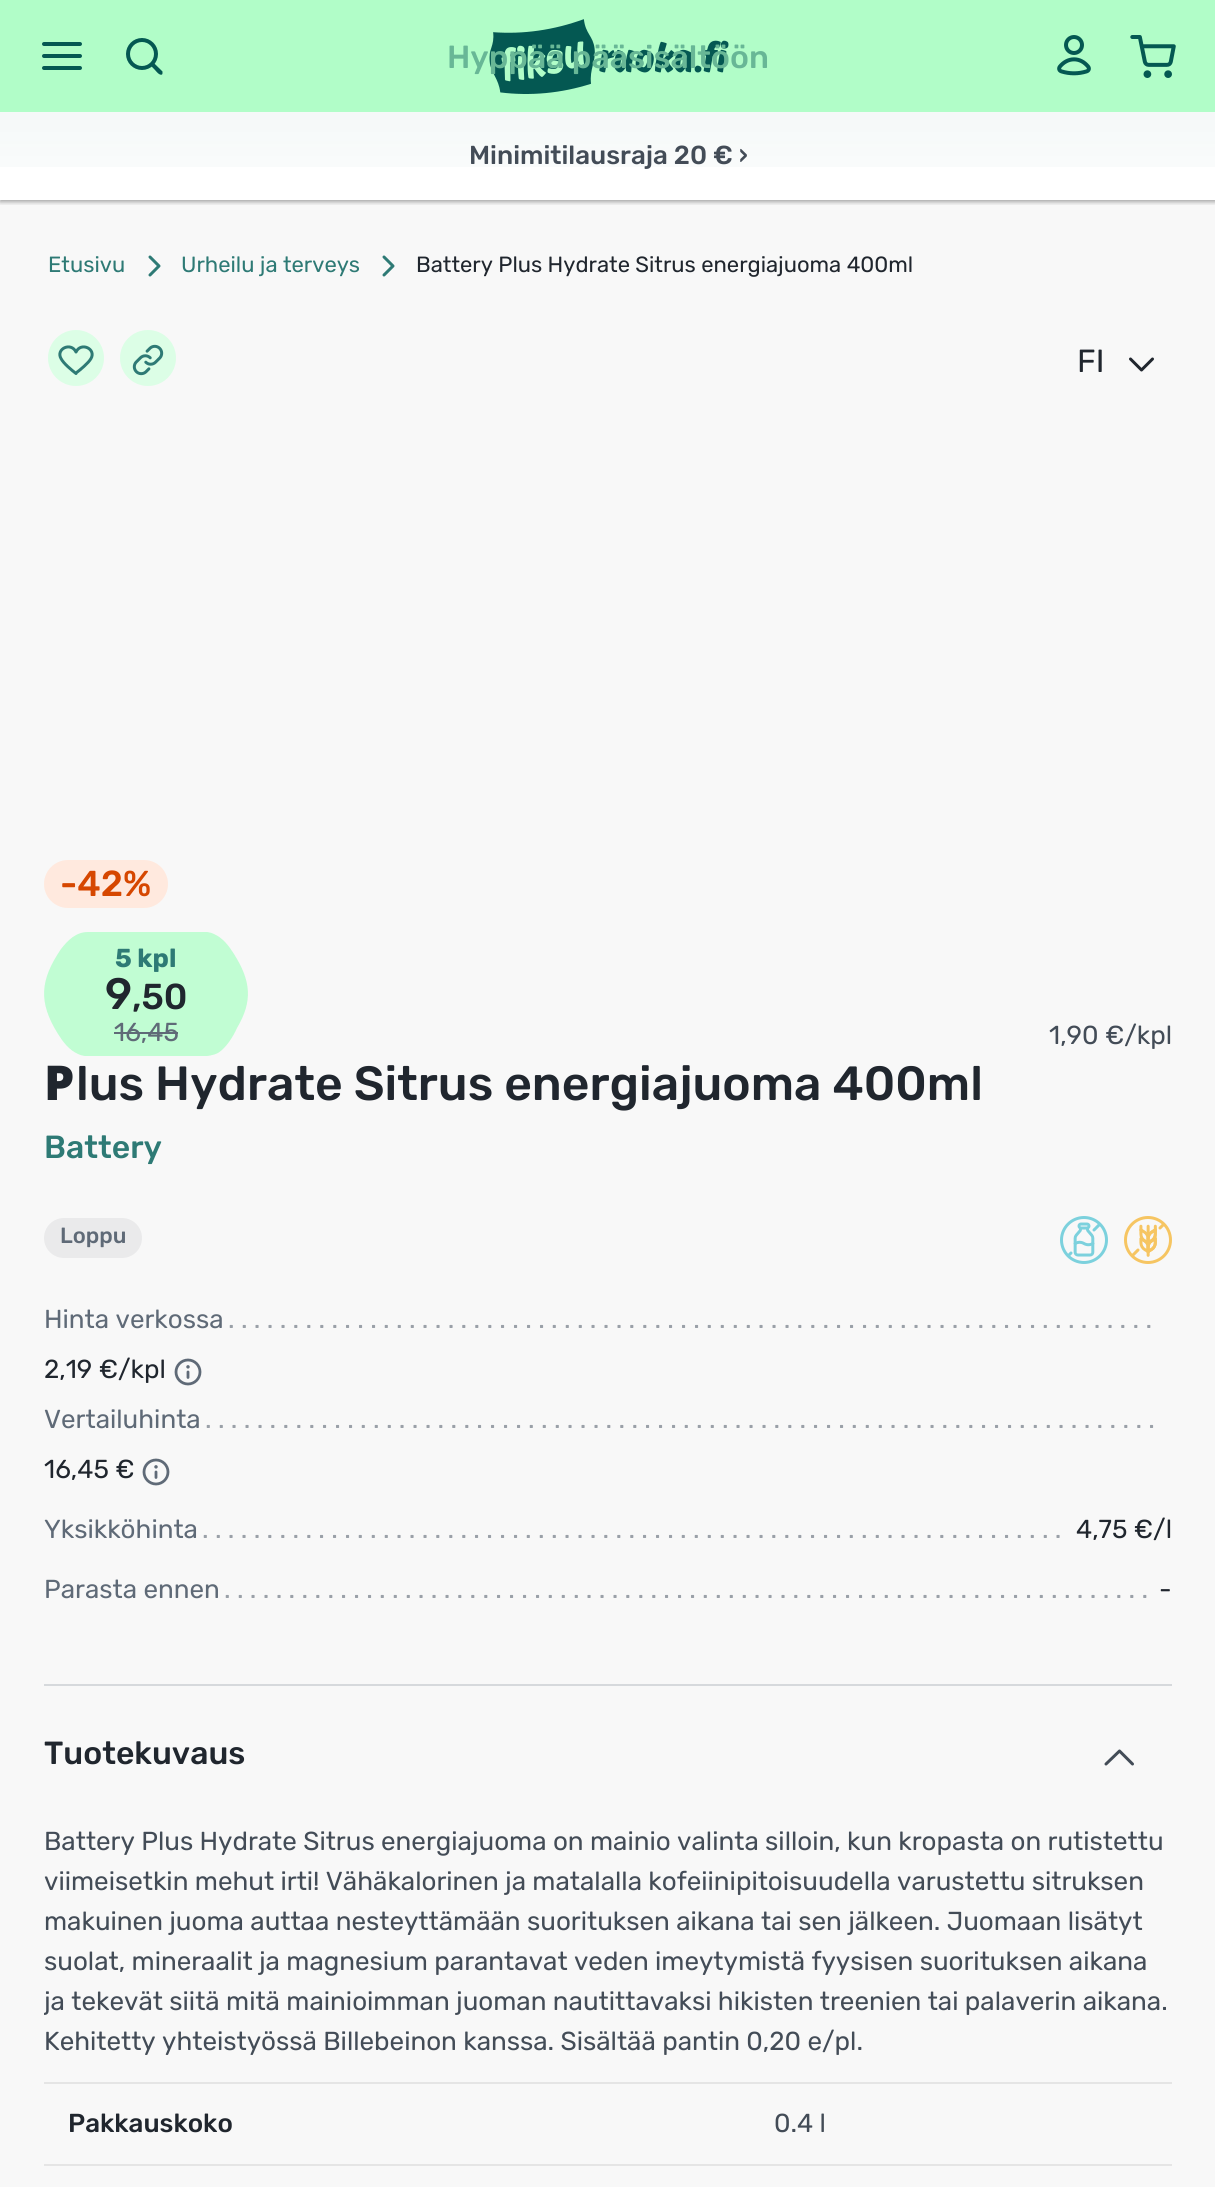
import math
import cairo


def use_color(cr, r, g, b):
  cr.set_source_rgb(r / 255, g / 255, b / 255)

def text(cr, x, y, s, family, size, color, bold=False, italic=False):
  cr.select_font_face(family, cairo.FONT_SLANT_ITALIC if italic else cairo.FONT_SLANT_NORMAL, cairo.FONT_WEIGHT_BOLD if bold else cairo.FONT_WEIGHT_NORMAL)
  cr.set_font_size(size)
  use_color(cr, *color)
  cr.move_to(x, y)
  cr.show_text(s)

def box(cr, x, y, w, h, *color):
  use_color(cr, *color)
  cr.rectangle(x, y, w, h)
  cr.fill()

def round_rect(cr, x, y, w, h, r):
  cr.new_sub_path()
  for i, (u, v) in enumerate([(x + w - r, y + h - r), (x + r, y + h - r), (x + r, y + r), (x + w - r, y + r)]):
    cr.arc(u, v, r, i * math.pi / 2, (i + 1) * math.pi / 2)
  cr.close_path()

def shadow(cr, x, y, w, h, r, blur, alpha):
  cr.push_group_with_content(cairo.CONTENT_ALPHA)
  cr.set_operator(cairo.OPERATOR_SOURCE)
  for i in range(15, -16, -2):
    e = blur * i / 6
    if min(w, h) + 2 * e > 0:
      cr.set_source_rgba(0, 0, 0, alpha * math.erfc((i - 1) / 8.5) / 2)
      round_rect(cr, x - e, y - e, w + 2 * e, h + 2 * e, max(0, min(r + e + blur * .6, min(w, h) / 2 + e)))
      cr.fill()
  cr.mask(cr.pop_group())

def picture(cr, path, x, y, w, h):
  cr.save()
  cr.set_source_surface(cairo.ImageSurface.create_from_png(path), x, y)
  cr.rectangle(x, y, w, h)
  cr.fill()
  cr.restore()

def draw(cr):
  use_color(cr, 248, 248, 248)
  cr.paint()
  box(cr, 0, 112, 1215, 88, 255, 255, 255)
  cr.save()
  cr.rectangle(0, 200, 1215, 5)
  cr.clip()
  use_color(cr, 0, 0, 0)
  shadow(cr, 0, 114, 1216, 88, 0, 2, 0.24)
  shadow(cr, 0, 114, 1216, 88, 0, 3, 0.12)
  cr.restore()
  box(cr, 0, 0, 1215, 112, 177, 253, 200)
  use_color(cr, 4, 88, 82)
  round_rect(cr, 42, 54, 40, 4, 2)
  cr.fill()
  round_rect(cr, 42, 42, 40, 4, 2)
  cr.fill()
  round_rect(cr, 42, 66, 40, 4, 2)
  cr.fill()
  cr.new_path()
  cr.move_to(136.5, 46)
  cr.line_to(162.5, 71.5)
  cr.line_to(162.5, 72.5)
  cr.curve_to(162.5, 73.5, 162.5, 74, 162, 74.5)
  cr.curve_to(159.5, 76, 155.5, 70.5, 155, 70)
  cr.line_to(133.5, 48)
  cr.curve_to(133, 46.5, 134, 45.5, 135.5, 45.5)
  cr.close_path()
  cr.fill()
  use_color(cr, 177, 253, 200)
  cr.arc(142, 54, 14, 0, 2 * math.pi)
  cr.fill_preserve()
  use_color(cr, 4, 88, 82)
  cr.set_line_width(4)
  cr.stroke()
  picture(cr, "img_01.png", 489, 19, 240, 75)
  picture(cr, "img_02.png", 1057, 35, 34, 41)
  picture(cr, "img_03.png", 1130, 35, 46, 43)
  gradient = cairo.LinearGradient(608, 232, 608, 112)
  gradient.add_color_stop_rgba(0, 0.016, 0.345, 0.322, 0)
  gradient.add_color_stop_rgba(1, 0.016, 0.345, 0.322, 0.04)
  cr.set_source(gradient)
  cr.rectangle(0, 112, 1215, 55)
  cr.fill()
  cr.new_path()
  cr.move_to(150, 257)
  cr.line_to(159, 266)
  cr.line_to(150, 275)
  use_color(cr, 46, 122, 117)
  cr.set_line_width(3)
  cr.set_line_cap(cairo.LINE_CAP_ROUND)
  cr.set_line_join(cairo.LINE_JOIN_ROUND)
  cr.stroke()
  cr.new_path()
  cr.move_to(384, 257)
  cr.line_to(393, 266)
  cr.line_to(384, 275)
  cr.stroke()
  use_color(cr, 220, 254, 230)
  cr.arc(76, 358, 28, 0, 2 * math.pi)
  cr.fill()
  cr.new_path()
  cr.move_to(76, 373)
  cr.curve_to(80, 370, 88.5, 363, 91, 358.5)
  cr.curve_to(96.5, 349, 81, 341.5, 76, 352)
  cr.curve_to(71, 341.5, 55.5, 349, 61, 358.5)
  cr.curve_to(63.5, 363.5, 71.5, 370, 76, 373.5)
  use_color(cr, 46, 122, 117)
  cr.stroke()
  use_color(cr, 220, 254, 230)
  cr.arc(148, 358, 28, 0, 2 * math.pi)
  cr.fill()
  picture(cr, "img_04.png", 132, 344, 32, 32)
  cr.new_path()
  cr.move_to(1152.5, 359)
  cr.line_to(1141.5, 370)
  cr.line_to(1130.5, 359)
  use_color(cr, 32, 38, 46)
  cr.stroke()
  use_color(cr, 255, 233, 222)
  round_rect(cr, 44, 860, 124, 48, 24)
  cr.fill()
  cr.save()
  cr.rectangle(44, 932, 204, 124)
  cr.clip()
  use_color(cr, 193, 253, 211)
  cr.new_path()
  cr.move_to(88, 932)
  cr.line_to(185, 932)
  cr.curve_to(194, 932, 206, 930, 214, 934)
  cr.curve_to(223, 938, 229, 946, 234, 954)
  cr.curve_to(251, 981, 253, 1001, 237, 1028)
  cr.curve_to(233, 1037, 226, 1048, 218, 1053)
  cr.curve_to(208, 1058, 195, 1056, 185, 1056)
  cr.line_to(107, 1056)
  cr.curve_to(98, 1056, 86, 1058, 78, 1054)
  cr.curve_to(69, 1050, 63, 1042, 58, 1034)
  cr.curve_to(38, 1002, 40, 980, 61, 949)
  cr.curve_to(68, 940, 76, 932, 88, 932)
  cr.close_path()
  cr.fill()
  cr.restore()
  box(cr, 114, 1032, 64, 2, 95, 106, 119)
  use_color(cr, 234, 234, 235)
  round_rect(cr, 44, 1218, 98, 40, 20)
  cr.fill()
  picture(cr, "img_05.png", 1060, 1216, 48, 48)
  picture(cr, "img_06.png", 1124, 1216, 48, 48)
  picture(cr, "img_07.png", 174, 1358, 28, 28)
  picture(cr, "img_07.png", 142, 1458, 28, 28)
  box(cr, 44, 1684, 1128, 2, 214, 217, 220)
  cr.new_path()
  cr.move_to(1132.5, 1764)
  cr.line_to(1119.5, 1751)
  cr.line_to(1106, 1764)
  use_color(cr, 67, 76, 87)
  cr.stroke()
  box(cr, 44, 2082, 1128, 2, 229, 229, 229)
  box(cr, 44, 2164, 1128, 2, 229, 229, 229)
  text(cr, 447, 68, "Hyppää pääsisältöön", "Rubik Medium", 32, (104, 183, 150))
  text(cr, 469, 164, "Minimitilausraja 20 € ›", "Rubik Medium", 26, (67, 76, 87))
  text(cr, 48, 272, "Etusivu", "Rubik", 22, (46, 122, 117))
  text(cr, 181, 272, "Urheilu ja terveys", "Rubik", 22, (46, 122, 117))
  text(cr, 416, 272, "Battery Plus Hydrate Sitrus energiajuoma 400ml", "Rubik", 22, (32, 38, 46))
  text(cr, 1077, 372, "FI", "Rubik", 32, (32, 38, 46))
  text(cr, 60, 896, "-42%", "Rubik Medium", 36, (214, 71, 0))
  text(cr, 115, 967, "5 kpl", "Rubik", 26, (46, 122, 117), bold=True)
  text(cr, 105, 1009, "9", "Rubik Medium", 44, (32, 38, 46))
  text(cr, 132, 1009, ",50", "Rubik Medium", 36, (32, 38, 46))
  text(cr, 114, 1041, "16,45", "Rubik", 26, (95, 106, 119))
  text(cr, 1049, 1044, "1,90 €/kpl", "Rubik", 26, (67, 76, 87))
  text(cr, 44, 1100, "P", "Noto Sans Black", 48, (32, 38, 46))
  text(cr, 76, 1100, "lus Hydrate Sitrus energiajuoma 400ml", "Rubik Medium", 48, (32, 38, 46))
  text(cr, 44, 1158, "Battery", "Rubik Medium", 32, (46, 122, 117))
  text(cr, 60, 1243, "Loppu", "Rubik Medium", 22, (95, 106, 119))
  text(cr, 44, 1328, "Hinta verkossa", "Rubik", 26, (95, 106, 119))
  text(cr, 228, 1328, ". . . . . . . . . . . . . . . . . . . . . . . . . . . . . . . . . . . . . . . . . . . . . . . . . . . . . . . . . . . . . . . . . . . . . . . .", "Rubik", 26, (154, 160, 168))
  text(cr, 44, 1378, "2,19 €/kpl", "Rubik", 26, (32, 38, 46))
  text(cr, 44, 1428, "Vertailuhinta", "Rubik", 26, (95, 106, 119))
  text(cr, 205, 1428, ". . . . . . . . . . . . . . . . . . . . . . . . . . . . . . . . . . . . . . . . . . . . . . . . . . . . . . . . . . . . . . . . . . . . . . . . . .", "Rubik", 26, (154, 160, 168))
  text(cr, 44, 1478, "16,45 €", "Rubik", 26, (32, 38, 46))
  text(cr, 44, 1538, "Yksikköhinta", "Rubik", 26, (95, 106, 119))
  text(cr, 202, 1538, ". . . . . . . . . . . . . . . . . . . . . . . . . . . . . . . . . . . . . . . . . . . . . . . . . . . . . . . . . . . . . . . . . . .", "Rubik", 26, (154, 160, 168))
  text(cr, 1076, 1538, "4,75 €/l", "Rubik", 26, (32, 38, 46))
  text(cr, 44, 1598, "Parasta ennen", "Rubik", 26, (95, 106, 119))
  text(cr, 224, 1598, ". . . . . . . . . . . . . . . . . . . . . . . . . . . . . . . . . . . . . . . . . . . . . . . . . . . . . . . . . . . . . . . . . . . . . . . .", "Rubik", 26, (154, 160, 168))
  text(cr, 1159, 1598, "-", "Rubik", 26, (32, 38, 46))
  text(cr, 44, 1764, "Tuotekuvaus", "Rubik Medium", 32, (32, 38, 46))
  text(cr, 44, 1850, "Battery Plus Hydrate Sitrus energiajuoma on mainio valinta silloin, kun kropasta on rutistettu", "Rubik", 26, (67, 76, 87))
  text(cr, 44, 1890, "viimeisetkin mehut irti! Vähäkalorinen ja matalalla kofeiinipitoisuudella varustettu sitruksen", "Rubik", 26, (67, 76, 87))
  text(cr, 44, 1930, "makuinen juoma auttaa nesteyttämään suorituksen aikana tai sen jälkeen. Juomaan lisätyt", "Rubik", 26, (67, 76, 87))
  text(cr, 44, 1970, "suolat, mineraalit ja magnesium parantavat veden imeytymistä fyysisen suorituksen aikana", "Rubik", 26, (67, 76, 87))
  cr.save()
  cr.rectangle(44, 1686, 1128, 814)
  cr.clip()
  text(cr, 44, 2010, "ja tekevät siitä mitä mainioimman juoman nautittavaksi hikisten treenien tai palaverin aikana.", "Rubik", 26, (67, 76, 87))
  cr.restore()
  text(cr, 44, 2050, "Kehitetty yhteistyössä Billebeinon kanssa. Sisältää pantin 0,20 e/pl.", "Rubik", 26, (67, 76, 87))
  text(cr, 68, 2132, "Pakkauskoko", "Rubik Medium", 26, (32, 38, 46))
  text(cr, 774, 2132, "0.4 l", "Rubik", 26, (67, 76, 87))


surface = cairo.ImageSurface(cairo.FORMAT_RGB24, 1215, 2187)
cr = cairo.Context(surface)
options = cairo.FontOptions()
options.set_hint_metrics(cairo.HINT_METRICS_OFF)
options.set_hint_style(cairo.HINT_STYLE_NONE)
cr.set_font_options(options)
cr.set_miter_limit(4)
draw(cr)
surface.write_to_png("out.png")
